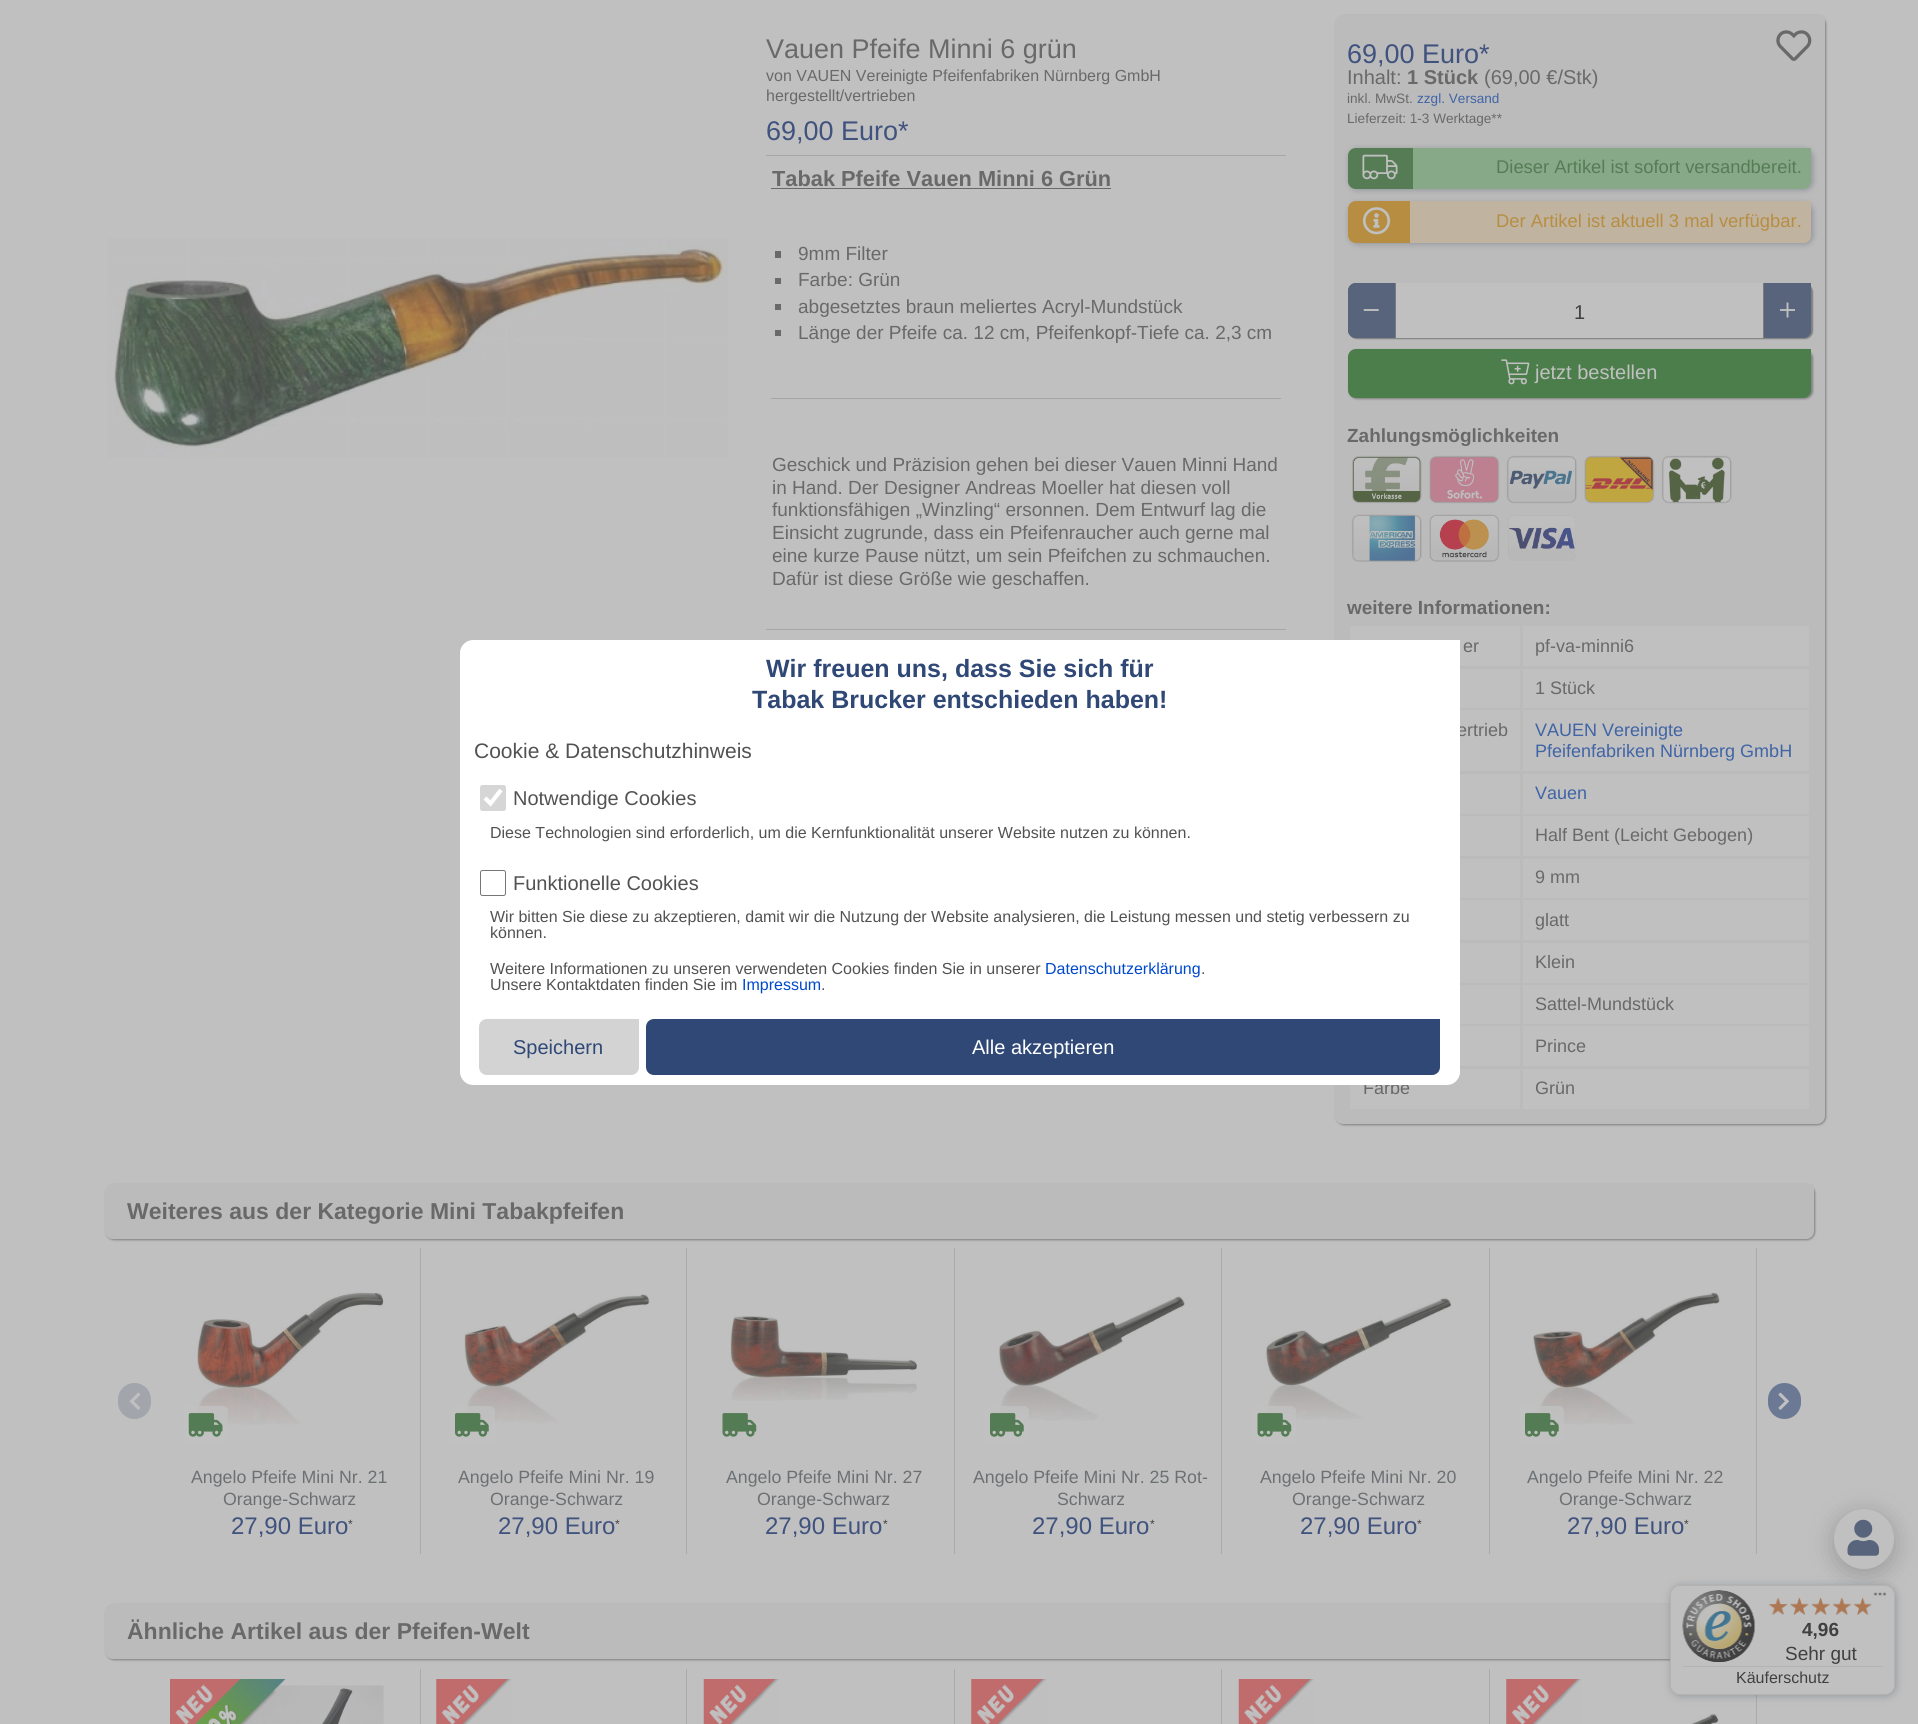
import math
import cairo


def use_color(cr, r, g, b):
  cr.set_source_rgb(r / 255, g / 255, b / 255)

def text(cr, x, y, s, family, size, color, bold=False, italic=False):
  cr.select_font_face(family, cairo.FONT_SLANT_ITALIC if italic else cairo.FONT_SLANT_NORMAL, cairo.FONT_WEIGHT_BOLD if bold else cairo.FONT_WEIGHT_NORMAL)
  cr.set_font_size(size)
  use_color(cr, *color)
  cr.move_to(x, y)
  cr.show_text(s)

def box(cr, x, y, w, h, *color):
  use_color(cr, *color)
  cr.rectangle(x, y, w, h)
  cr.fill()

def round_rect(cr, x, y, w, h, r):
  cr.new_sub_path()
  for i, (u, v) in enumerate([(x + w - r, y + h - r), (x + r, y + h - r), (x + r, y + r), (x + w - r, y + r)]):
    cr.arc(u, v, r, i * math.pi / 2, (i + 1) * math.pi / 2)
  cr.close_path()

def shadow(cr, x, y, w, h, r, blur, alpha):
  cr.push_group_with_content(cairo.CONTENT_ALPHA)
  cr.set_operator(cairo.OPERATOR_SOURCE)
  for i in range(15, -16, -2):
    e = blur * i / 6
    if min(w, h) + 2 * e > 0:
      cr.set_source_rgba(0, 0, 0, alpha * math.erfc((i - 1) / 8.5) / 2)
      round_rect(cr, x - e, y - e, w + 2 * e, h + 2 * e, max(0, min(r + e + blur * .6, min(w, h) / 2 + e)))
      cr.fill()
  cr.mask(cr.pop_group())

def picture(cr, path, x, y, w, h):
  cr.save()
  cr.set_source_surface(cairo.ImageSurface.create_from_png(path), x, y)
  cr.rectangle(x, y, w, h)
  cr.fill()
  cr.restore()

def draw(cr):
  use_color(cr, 192, 192, 192)
  cr.paint()
  picture(cr, "img_01.png", 106, 238, 622, 220)
  box(cr, 766, 155, 520, 1, 167, 166, 166)
  box(cr, 771, 188, 340, 1, 105, 105, 105)
  box(cr, 775, 251, 6, 7, 105, 105, 105)
  box(cr, 775, 278, 6, 6, 105, 105, 105)
  box(cr, 775, 304, 6, 6, 105, 105, 105)
  box(cr, 775, 330, 6, 6, 105, 105, 105)
  box(cr, 771, 398, 510, 1, 167, 166, 166)
  box(cr, 766, 629, 520, 1, 167, 166, 166)
  use_color(cr, 128, 128, 128)
  shadow(cr, 1336, 16, 490, 1109, 8, 1, 1)
  use_color(cr, 187, 187, 187)
  cr.new_path()
  cr.move_to(1343, 15)
  cr.line_to(1825, 15)
  cr.line_to(1825, 1116)
  cr.curve_to(1825, 1120.5, 1821.5, 1124, 1817, 1124)
  cr.line_to(1343, 1124)
  cr.curve_to(1338.5, 1124, 1335, 1120.5, 1335, 1116)
  cr.line_to(1335, 23)
  cr.curve_to(1335, 18.5, 1338.5, 15, 1343, 15)
  cr.close_path()
  cr.fill()
  picture(cr, "img_02.png", 1776, 30, 36, 31)
  use_color(cr, 80, 88, 103)
  shadow(cr, 1349, 149, 464, 41, 8, 3, 0.4)
  use_color(cr, 136, 169, 136)
  cr.new_path()
  cr.move_to(1356, 148)
  cr.line_to(1811, 148)
  cr.line_to(1811, 181)
  cr.curve_to(1811, 185.5, 1807.5, 189, 1803, 189)
  cr.line_to(1356, 189)
  cr.curve_to(1351.5, 189, 1348, 185.5, 1348, 181)
  cr.line_to(1348, 156)
  cr.curve_to(1348, 151.5, 1351.5, 148, 1356, 148)
  cr.close_path()
  cr.fill()
  use_color(cr, 85, 124, 85)
  cr.new_path()
  cr.move_to(1356, 148)
  cr.line_to(1413, 148)
  cr.line_to(1413, 189)
  cr.line_to(1356, 189)
  cr.curve_to(1351.5, 189, 1348, 185.5, 1348, 181)
  cr.line_to(1348, 156)
  cr.curve_to(1348, 151.5, 1351.5, 148, 1356, 148)
  cr.close_path()
  cr.fill()
  picture(cr, "img_03.png", 1362, 154, 36, 26)
  cr.save()
  cr.set_fill_rule(cairo.FILL_RULE_EVEN_ODD)
  cr.new_path()
  cr.move_to(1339, 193)
  cr.line_to(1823, 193)
  cr.line_to(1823, 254)
  cr.line_to(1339, 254)
  cr.close_path()
  cr.move_to(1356, 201)
  cr.line_to(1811, 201)
  cr.line_to(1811, 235)
  cr.curve_to(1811, 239.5, 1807.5, 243, 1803, 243)
  cr.line_to(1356, 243)
  cr.curve_to(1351.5, 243, 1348, 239.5, 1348, 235)
  cr.line_to(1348, 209)
  cr.curve_to(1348, 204.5, 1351.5, 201, 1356, 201)
  cr.close_path()
  cr.clip()
  use_color(cr, 80, 88, 103)
  shadow(cr, 1349, 203, 464, 41, 8, 3, 0.4)
  cr.restore()
  cr.set_source_rgba(0.753, 0.702, 0.612, 0.89)
  cr.new_path()
  cr.move_to(1356, 201)
  cr.line_to(1811, 201)
  cr.line_to(1811, 235)
  cr.curve_to(1811, 239.5, 1807.5, 243, 1803, 243)
  cr.line_to(1356, 243)
  cr.curve_to(1351.5, 243, 1348, 239.5, 1348, 235)
  cr.line_to(1348, 209)
  cr.curve_to(1348, 204.5, 1351.5, 201, 1356, 201)
  cr.close_path()
  cr.fill()
  use_color(cr, 183, 141, 66)
  cr.new_path()
  cr.move_to(1356, 201)
  cr.line_to(1410, 201)
  cr.line_to(1410, 243)
  cr.line_to(1356, 243)
  cr.curve_to(1351.5, 243, 1348, 239.5, 1348, 235)
  cr.line_to(1348, 209)
  cr.curve_to(1348, 204.5, 1351.5, 201, 1356, 201)
  cr.close_path()
  cr.fill()
  picture(cr, "img_04.png", 1362, 207, 29, 28)
  use_color(cr, 128, 128, 128)
  shadow(cr, 1349, 284, 464, 55, 8, 0.5, 1)
  use_color(cr, 88, 100, 123)
  cr.new_path()
  cr.move_to(1356, 283)
  cr.line_to(1811, 283)
  cr.line_to(1811, 330)
  cr.curve_to(1811, 334.5, 1807.5, 338, 1803, 338)
  cr.line_to(1356, 338)
  cr.curve_to(1351.5, 338, 1348, 334.5, 1348, 330)
  cr.line_to(1348, 291)
  cr.curve_to(1348, 286.5, 1351.5, 283, 1356, 283)
  cr.close_path()
  cr.fill()
  cr.new_path()
  cr.move_to(1356, 283)
  cr.line_to(1395, 283)
  cr.line_to(1395, 330)
  cr.curve_to(1395, 334.5, 1391.5, 338, 1387, 338)
  cr.line_to(1356, 338)
  cr.curve_to(1351.5, 338, 1348, 334.5, 1348, 330)
  cr.line_to(1348, 291)
  cr.curve_to(1348, 286.5, 1351.5, 283, 1356, 283)
  cr.close_path()
  cr.fill()
  picture(cr, "img_05.png", 1363, 309, 16, 2)
  box(cr, 1396, 283, 367, 55, 192, 192, 192)
  use_color(cr, 123, 123, 123)
  cr.set_fill_rule(cairo.FILL_RULE_EVEN_ODD)
  cr.new_path()
  cr.move_to(1395, 338)
  cr.line_to(1395, 283)
  cr.line_to(1396, 283)
  cr.line_to(1396, 338)
  cr.close_path()
  cr.move_to(1764, 283)
  cr.line_to(1764, 338)
  cr.line_to(1763, 338)
  cr.line_to(1763, 283)
  cr.close_path()
  cr.fill()
  use_color(cr, 88, 100, 123)
  cr.new_path()
  cr.move_to(1772, 283)
  cr.line_to(1811, 283)
  cr.line_to(1811, 330)
  cr.curve_to(1811, 334.5, 1807.5, 338, 1803, 338)
  cr.line_to(1772, 338)
  cr.curve_to(1767.5, 338, 1764, 334.5, 1764, 330)
  cr.line_to(1764, 291)
  cr.curve_to(1764, 286.5, 1767.5, 283, 1772, 283)
  cr.close_path()
  cr.fill()
  picture(cr, "img_06.png", 1780, 302, 15, 16)
  use_color(cr, 128, 128, 128)
  shadow(cr, 1349, 350, 464, 49, 8, 1, 1)
  use_color(cr, 76, 126, 75)
  cr.new_path()
  cr.move_to(1356, 349)
  cr.line_to(1811, 349)
  cr.line_to(1811, 390)
  cr.curve_to(1811, 394.5, 1807.5, 398, 1803, 398)
  cr.line_to(1356, 398)
  cr.curve_to(1351.5, 398, 1348, 394.5, 1348, 390)
  cr.line_to(1348, 357)
  cr.curve_to(1348, 352.5, 1351.5, 349, 1356, 349)
  cr.close_path()
  cr.fill()
  picture(cr, "img_07.png", 1501, 359, 29, 26)
  picture(cr, "img_08.png", 1351, 455, 71, 49)
  picture(cr, "img_09.png", 1429, 455, 71, 49)
  picture(cr, "img_10.png", 1506, 455, 71, 49)
  picture(cr, "img_11.png", 1584, 455, 71, 49)
  picture(cr, "img_12.png", 1661, 455, 71, 49)
  picture(cr, "img_13.png", 1351, 514, 71, 48)
  picture(cr, "img_14.png", 1429, 514, 71, 48)
  picture(cr, "img_15.png", 1508, 515, 68, 46)
  box(cr, 1350, 626, 170, 40, 192, 192, 192)
  box(cr, 1523, 626, 286, 40, 192, 192, 192)
  box(cr, 1460, 669, 60, 39, 192, 192, 192)
  box(cr, 1523, 669, 286, 39, 192, 192, 192)
  box(cr, 1460, 710, 60, 61, 192, 192, 192)
  box(cr, 1523, 710, 286, 61, 192, 192, 192)
  box(cr, 1460, 774, 60, 40, 192, 192, 192)
  box(cr, 1523, 774, 286, 40, 192, 192, 192)
  box(cr, 1460, 816, 60, 40, 192, 192, 192)
  box(cr, 1523, 816, 286, 40, 192, 192, 192)
  box(cr, 1460, 859, 60, 39, 192, 192, 192)
  box(cr, 1523, 859, 286, 39, 192, 192, 192)
  box(cr, 1460, 900, 60, 40, 192, 192, 192)
  box(cr, 1523, 900, 286, 40, 192, 192, 192)
  box(cr, 1460, 943, 60, 40, 192, 192, 192)
  box(cr, 1523, 943, 286, 40, 192, 192, 192)
  box(cr, 1460, 985, 60, 39, 192, 192, 192)
  box(cr, 1523, 985, 286, 39, 192, 192, 192)
  box(cr, 1460, 1026, 60, 40, 192, 192, 192)
  box(cr, 1523, 1026, 286, 40, 192, 192, 192)
  box(cr, 1350, 1069, 170, 40, 192, 192, 192)
  box(cr, 1523, 1069, 286, 40, 192, 192, 192)
  use_color(cr, 128, 128, 128)
  shadow(cr, 106, 1185, 1709, 55, 8, 1, 1)
  use_color(cr, 187, 187, 187)
  cr.new_path()
  cr.move_to(113, 1184)
  cr.line_to(1814, 1184)
  cr.line_to(1814, 1231)
  cr.curve_to(1814, 1235.5, 1810.5, 1239, 1806, 1239)
  cr.line_to(113, 1239)
  cr.curve_to(108.5, 1239, 105, 1235.5, 105, 1231)
  cr.line_to(105, 1192)
  cr.curve_to(105, 1187.5, 108.5, 1184, 113, 1184)
  cr.close_path()
  cr.fill()
  use_color(cr, 162, 165, 172)
  round_rect(cr, 118, 1383, 33, 36, 16.5)
  cr.fill()
  picture(cr, "img_16.png", 129, 1392, 12, 18)
  use_color(cr, 107, 121, 148)
  round_rect(cr, 1768, 1383, 33, 36, 16.5)
  cr.fill()
  picture(cr, "img_17.png", 1778, 1392, 11, 18)
  box(cr, 420, 1248, 1, 306, 170, 170, 170)
  picture(cr, "img_18.png", 197, 1292, 187, 133)
  cr.set_source_rgba(0.753, 0.753, 0.753, 0.82)
  round_rect(cr, 183, 1406, 45, 39, 5)
  cr.fill()
  picture(cr, "img_19.png", 188, 1413, 35, 24)
  box(cr, 686, 1248, 1, 306, 170, 170, 170)
  picture(cr, "img_20.png", 464, 1294, 186, 130)
  cr.set_source_rgba(0.753, 0.753, 0.753, 0.82)
  round_rect(cr, 450, 1406, 45, 39, 5)
  cr.fill()
  picture(cr, "img_21.png", 455, 1413, 34, 24)
  box(cr, 954, 1248, 1, 306, 170, 170, 170)
  picture(cr, "img_22.png", 730, 1316, 187, 85)
  picture(cr, "img_23.png", 722, 1413, 35, 24)
  box(cr, 1221, 1248, 1, 306, 170, 170, 170)
  picture(cr, "img_24.png", 998, 1296, 187, 125)
  cr.set_source_rgba(0.753, 0.753, 0.753, 0.82)
  round_rect(cr, 985, 1406, 44, 39, 5)
  cr.fill()
  picture(cr, "img_25.png", 990, 1413, 34, 24)
  box(cr, 1489, 1248, 1, 306, 170, 170, 170)
  picture(cr, "img_26.png", 1265, 1298, 186, 122)
  cr.set_source_rgba(0.753, 0.753, 0.753, 0.82)
  round_rect(cr, 1253, 1406, 43, 39, 5)
  cr.fill()
  picture(cr, "img_27.png", 1257, 1413, 35, 24)
  box(cr, 1756, 1248, 1, 306, 170, 170, 170)
  picture(cr, "img_28.png", 1533, 1292, 187, 133)
  cr.set_source_rgba(0.753, 0.753, 0.753, 0.82)
  round_rect(cr, 1519, 1406, 45, 39, 5)
  cr.fill()
  picture(cr, "img_29.png", 1525, 1413, 34, 24)
  use_color(cr, 128, 128, 128)
  shadow(cr, 106, 1605, 1709, 55, 8, 1, 1)
  use_color(cr, 187, 187, 187)
  cr.new_path()
  cr.move_to(113, 1604)
  cr.line_to(1814, 1604)
  cr.line_to(1814, 1651)
  cr.curve_to(1814, 1655.5, 1810.5, 1659, 1806, 1659)
  cr.line_to(113, 1659)
  cr.curve_to(108.5, 1659, 105, 1655.5, 105, 1651)
  cr.line_to(105, 1612)
  cr.curve_to(105, 1607.5, 108.5, 1604, 113, 1604)
  cr.close_path()
  cr.fill()
  box(cr, 420, 1669, 1, 55, 170, 170, 170)
  picture(cr, "img_32.png", 196, 1685, 188, 39)
  picture(cr, "img_30.png", 170, 1679, 71, 45)
  picture(cr, "img_31.png", 195, 1679, 91, 45)
  box(cr, 686, 1669, 1, 55, 170, 170, 170)
  picture(cr, "img_33.png", 436, 1679, 76, 45)
  box(cr, 954, 1669, 1, 55, 170, 170, 170)
  picture(cr, "img_34.png", 703, 1679, 76, 45)
  box(cr, 1221, 1669, 1, 55, 170, 170, 170)
  picture(cr, "img_33.png", 971, 1679, 76, 45)
  box(cr, 1489, 1669, 1, 55, 170, 170, 170)
  picture(cr, "img_34.png", 1238, 1679, 76, 45)
  box(cr, 1756, 1695, 1, 29, 170, 170, 170)
  picture(cr, "img_33.png", 1506, 1679, 76, 45)
  picture(cr, "img_35.png", 1689, 1713, 30, 11)
  use_color(cr, 64, 64, 64)
  shadow(cr, 1834, 1514, 60, 60, 30, 12.5, 0.3)
  use_color(cr, 192, 192, 192)
  cr.arc(1864, 1539, 30, 0, 2 * math.pi)
  cr.fill()
  picture(cr, "img_36.png", 1847, 1519, 32, 37)
  use_color(cr, 80, 88, 103)
  shadow(cr, 1671, 1586, 225, 110, 10, 4, 0.4)
  use_color(cr, 192, 192, 192)
  round_rect(cr, 1670.5, 1585.5, 224, 109, 9.5)
  cr.fill_preserve()
  use_color(cr, 179, 179, 179)
  cr.set_line_width(1)
  cr.stroke()
  picture(cr, "img_37.png", 1873, 1592, 13, 4)
  picture(cr, "img_38.png", 1682, 1590, 74, 73)
  picture(cr, "img_44.png", 1769, 1598, 19, 17)
  picture(cr, "img_39.png", 1768, 1597, 20, 18)
  picture(cr, "img_45.png", 1790, 1598, 19, 17)
  picture(cr, "img_40.png", 1790, 1597, 19, 18)
  picture(cr, "img_46.png", 1811, 1598, 19, 17)
  picture(cr, "img_41.png", 1811, 1597, 19, 18)
  picture(cr, "img_47.png", 1833, 1598, 18, 17)
  picture(cr, "img_42.png", 1832, 1597, 20, 18)
  picture(cr, "img_48.png", 1854, 1598, 19, 17)
  picture(cr, "img_43.png", 1854, 1597, 17, 18)
  box(cr, 1683, 1666, 200, 1, 179, 179, 179)
  text(cr, 766, 58, "Vauen Pfeife Minni 6 grün", "Liberation Sans", 27, (105, 105, 105))
  text(cr, 766, 81, "von VAUEN Vereinigte Pfeifenfabriken Nürnberg GmbH", "Liberation Sans", 16, (105, 105, 105))
  text(cr, 766, 101, "hergestellt/vertrieben", "Liberation Sans", 16, (105, 105, 105))
  text(cr, 766, 140, "69,00 Euro*", "Liberation Sans", 27, (64, 82, 126))
  text(cr, 772, 186, "Tabak Pfeife Vauen Minni 6 Grün", "Liberation Sans", 21.8, (105, 105, 105), bold=True)
  text(cr, 798, 260, "9mm Filter", "Liberation Sans", 19, (105, 105, 105))
  text(cr, 798, 286, "Farbe: Grün", "Liberation Sans", 19, (105, 105, 105))
  text(cr, 798, 313, "abgesetztes braun meliertes Acryl-Mundstück", "Liberation Sans", 19, (105, 105, 105))
  text(cr, 798, 339, "Länge der Pfeife ca. 12 cm, Pfeifenkopf-Tiefe ca. 2,3 cm", "Liberation Sans", 19, (105, 105, 105))
  text(cr, 772, 471, "Geschick und Präzision gehen bei dieser Vauen Minni Hand", "Liberation Sans", 19, (105, 105, 105))
  text(cr, 772, 494, "in Hand. Der Designer Andreas Moeller hat diesen voll", "Liberation Sans", 19, (105, 105, 105))
  text(cr, 772, 516, "funktionsfähigen „Winzling“ ersonnen. Dem Entwurf lag die", "Liberation Sans", 19, (105, 105, 105))
  text(cr, 772, 539, "Einsicht zugrunde, dass ein Pfeifenraucher auch gerne mal", "Liberation Sans", 19, (105, 105, 105))
  text(cr, 772, 562, "eine kurze Pause nützt, um sein Pfeifchen zu schmauchen.", "Liberation Sans", 19, (105, 105, 105))
  text(cr, 772, 585, "Dafür ist diese Größe wie geschaffen.", "Liberation Sans", 19, (105, 105, 105))
  text(cr, 1347, 63, "69,00 Euro*", "Liberation Sans", 27, (64, 82, 126))
  text(cr, 1347, 84, "Inhalt:", "Liberation Sans", 20, (105, 105, 105))
  text(cr, 1407, 84, "1 Stück", "Liberation Sans", 20, (105, 105, 105), bold=True)
  text(cr, 1484, 84, "(69,00 €/Stk)", "Liberation Sans", 20, (105, 105, 105))
  text(cr, 1347, 103, "inkl. MwSt.", "Liberation Sans", 13.6, (105, 105, 105))
  text(cr, 1417, 103, "zzgl. Versand", "Liberation Sans", 13.6, (64, 100, 166))
  text(cr, 1347, 123, "Lieferzeit: 1-3 Werktage**", "Liberation Sans", 13.6, (105, 105, 105))
  text(cr, 1496, 173, "Dieser Artikel ist sofort versandbereit.", "Liberation Sans", 18.4, (85, 124, 85))
  text(cr, 1496, 227, "Der Artikel ist aktuell 3 mal verfügbar.", "Liberation Sans", 18.4, (183, 141, 66))
  text(cr, 1574, 319, "1", "Liberation Sans", 20, (64, 64, 64))
  text(cr, 1535, 379, "jetzt bestellen", "Liberation Sans", 20, (192, 192, 192))
  text(cr, 1347, 442, "Zahlungsmöglichkeiten", "Liberation Sans", 19, (105, 105, 105), bold=True)
  text(cr, 1347, 614, "weitere Informationen:", "Liberation Sans", 19, (105, 105, 105), bold=True)
  text(cr, 1463, 652, "er", "Liberation Sans", 18, (105, 105, 105))
  text(cr, 1535, 652, "pf-va-minni6", "Liberation Sans", 18, (105, 105, 105))
  text(cr, 1535, 694, "1 Stück", "Liberation Sans", 18, (105, 105, 105))
  text(cr, 1457, 736, "ertrieb", "Liberation Sans", 18, (105, 105, 105))
  text(cr, 1535, 736, "VAUEN Vereinigte", "Liberation Sans", 18, (64, 100, 166))
  text(cr, 1535, 757, "Pfeifenfabriken Nürnberg GmbH", "Liberation Sans", 18, (64, 100, 166))
  text(cr, 1535, 799, "Vauen", "Liberation Sans", 18, (64, 100, 166))
  text(cr, 1535, 841, "Half Bent (Leicht Gebogen)", "Liberation Sans", 18, (105, 105, 105))
  text(cr, 1535, 883, "9 mm", "Liberation Sans", 18, (105, 105, 105))
  text(cr, 1535, 926, "glatt", "Liberation Sans", 18, (105, 105, 105))
  text(cr, 1535, 968, "Klein", "Liberation Sans", 18, (105, 105, 105))
  text(cr, 1535, 1010, "Sattel-Mundstück", "Liberation Sans", 18, (105, 105, 105))
  text(cr, 1535, 1052, "Prince", "Liberation Sans", 18, (105, 105, 105))
  text(cr, 1363, 1094, "Farbe", "Liberation Sans", 18, (105, 105, 105))
  text(cr, 1535, 1094, "Grün", "Liberation Sans", 18, (105, 105, 105))
  text(cr, 127, 1219, "Weiteres aus der Kategorie Mini Tabakpfeifen", "Liberation Sans", 23, (105, 105, 105), bold=True)
  text(cr, 191, 1483, "Angelo Pfeife Mini Nr. 21", "Liberation Sans", 17.75, (109, 112, 115))
  text(cr, 223, 1505, "Orange-Schwarz", "Liberation Sans", 17.75, (109, 112, 115))
  text(cr, 231, 1534, "27,90 Euro", "Liberation Sans", 24, (64, 82, 126))
  text(cr, 348, 1528, "*", "Liberation Sans", 12, (64, 64, 64))
  text(cr, 458, 1483, "Angelo Pfeife Mini Nr. 19", "Liberation Sans", 17.75, (109, 112, 115))
  text(cr, 490, 1505, "Orange-Schwarz", "Liberation Sans", 17.75, (109, 112, 115))
  text(cr, 498, 1534, "27,90 Euro", "Liberation Sans", 24, (64, 82, 126))
  text(cr, 615, 1528, "*", "Liberation Sans", 12, (64, 64, 64))
  text(cr, 726, 1483, "Angelo Pfeife Mini Nr. 27", "Liberation Sans", 17.75, (109, 112, 115))
  text(cr, 757, 1505, "Orange-Schwarz", "Liberation Sans", 17.75, (109, 112, 115))
  text(cr, 765, 1534, "27,90 Euro", "Liberation Sans", 24, (64, 82, 126))
  text(cr, 883, 1528, "*", "Liberation Sans", 12, (64, 64, 64))
  text(cr, 973, 1483, "Angelo Pfeife Mini Nr. 25 Rot-", "Liberation Sans", 17.75, (109, 112, 115))
  text(cr, 1057, 1505, "Schwarz", "Liberation Sans", 17.75, (109, 112, 115))
  text(cr, 1032, 1534, "27,90 Euro", "Liberation Sans", 24, (64, 82, 126))
  text(cr, 1150, 1528, "*", "Liberation Sans", 12, (64, 64, 64))
  text(cr, 1260, 1483, "Angelo Pfeife Mini Nr. 20", "Liberation Sans", 17.75, (109, 112, 115))
  text(cr, 1292, 1505, "Orange-Schwarz", "Liberation Sans", 17.75, (109, 112, 115))
  text(cr, 1300, 1534, "27,90 Euro", "Liberation Sans", 24, (64, 82, 126))
  text(cr, 1417, 1528, "*", "Liberation Sans", 12, (64, 64, 64))
  text(cr, 1527, 1483, "Angelo Pfeife Mini Nr. 22", "Liberation Sans", 17.75, (109, 112, 115))
  text(cr, 1559, 1505, "Orange-Schwarz", "Liberation Sans", 17.75, (109, 112, 115))
  text(cr, 1567, 1534, "27,90 Euro", "Liberation Sans", 24, (64, 82, 126))
  text(cr, 1684, 1528, "*", "Liberation Sans", 12, (64, 64, 64))
  text(cr, 127, 1639, "Ähnliche Artikel aus der Pfeifen-Welt", "Liberation Sans", 23, (105, 105, 105), bold=True)
  use_color(cr, 255, 255, 255)
  cr.new_path()
  cr.move_to(473, 640)
  cr.line_to(1460, 640)
  cr.line_to(1460, 1072)
  cr.curve_to(1460, 1079, 1454, 1085, 1447, 1085)
  cr.line_to(473, 1085)
  cr.curve_to(466, 1085, 460, 1079, 460, 1072)
  cr.line_to(460, 653)
  cr.curve_to(460, 646, 466, 640, 473, 640)
  cr.close_path()
  cr.fill()
  text(cr, 766, 677, "Wir freuen uns, dass Sie sich für", "Liberation Sans", 25, (47, 72, 118), bold=True)
  text(cr, 752, 708, "Tabak Brucker entschieden haben!", "Liberation Sans", 25, (47, 72, 118), bold=True)
  text(cr, 474, 758, "Cookie & Datenschutzhinweis", "Liberation Sans", 21, (82, 82, 82))
  use_color(cr, 214, 214, 214)
  round_rect(cr, 480, 785, 26, 26, 2.5)
  cr.fill()
  cr.new_path()
  cr.move_to(485, 798)
  cr.line_to(490.5, 803.5)
  cr.line_to(501, 790)
  use_color(cr, 255, 255, 255)
  cr.set_line_width(4.2)
  cr.stroke()
  text(cr, 513, 805, "Notwendige Cookies", "Liberation Sans", 20, (82, 82, 82))
  text(cr, 490, 838, "Diese Technologien sind erforderlich, um die Kernfunktionalität unserer Website nutzen zu können.", "Liberation Sans", 16, (82, 82, 82))
  round_rect(cr, 480.5, 870.5, 25, 25, 2)
  use_color(cr, 118, 118, 118)
  cr.set_line_width(1)
  cr.stroke()
  text(cr, 513, 890, "Funktionelle Cookies", "Liberation Sans", 20, (82, 82, 82))
  text(cr, 490, 922, "Wir bitten Sie diese zu akzeptieren, damit wir die Nutzung der Website analysieren, die Leistung messen und stetig verbessern zu", "Liberation Sans", 16, (82, 82, 82))
  text(cr, 490, 938, "können.", "Liberation Sans", 16, (82, 82, 82))
  text(cr, 490, 974, "Weitere Informationen zu unseren verwendeten Cookies finden Sie in unserer", "Liberation Sans", 16, (82, 82, 82))
  text(cr, 1045, 974, "Datenschutzerklärung", "Liberation Sans", 16, (0, 72, 204))
  text(cr, 1201, 974, ".", "Liberation Sans", 16, (82, 82, 82))
  text(cr, 490, 990, "Unsere Kontaktdaten finden Sie im", "Liberation Sans", 16, (82, 82, 82))
  text(cr, 742, 990, "Impressum", "Liberation Sans", 16, (0, 72, 204))
  text(cr, 821, 990, ".", "Liberation Sans", 16, (82, 82, 82))
  use_color(cr, 211, 211, 211)
  cr.new_path()
  cr.move_to(487, 1019)
  cr.line_to(639, 1019)
  cr.line_to(639, 1067)
  cr.curve_to(639, 1071.5, 635.5, 1075, 631, 1075)
  cr.line_to(487, 1075)
  cr.curve_to(482.5, 1075, 479, 1071.5, 479, 1067)
  cr.line_to(479, 1027)
  cr.curve_to(479, 1022.5, 482.5, 1019, 487, 1019)
  cr.close_path()
  cr.fill()
  text(cr, 513, 1054, "Speichern", "Liberation Sans", 20, (47, 72, 118))
  cr.new_path()
  cr.move_to(654, 1019)
  cr.line_to(1440, 1019)
  cr.line_to(1440, 1067)
  cr.curve_to(1440, 1071.5, 1436.5, 1075, 1432, 1075)
  cr.line_to(654, 1075)
  cr.curve_to(649.5, 1075, 646, 1071.5, 646, 1067)
  cr.line_to(646, 1027)
  cr.curve_to(646, 1022.5, 649.5, 1019, 654, 1019)
  cr.close_path()
  cr.fill()
  text(cr, 972, 1054, "Alle akzeptieren", "Liberation Sans", 20, (255, 255, 255))
  text(cr, 1802, 1636, "4,96", "Liberation Sans", 19, (64, 64, 64), bold=True)
  text(cr, 1785, 1660, "Sehr gut", "Liberation Sans", 19, (64, 64, 64))
  text(cr, 1736, 1683, "Käuferschutz", "Liberation Sans", 16, (64, 64, 64))


surface = cairo.ImageSurface(cairo.FORMAT_RGB24, 1918, 1724)
cr = cairo.Context(surface)
options = cairo.FontOptions()
options.set_hint_metrics(cairo.HINT_METRICS_OFF)
options.set_hint_style(cairo.HINT_STYLE_NONE)
cr.set_font_options(options)
cr.set_miter_limit(4)
draw(cr)
surface.write_to_png("out.png")
